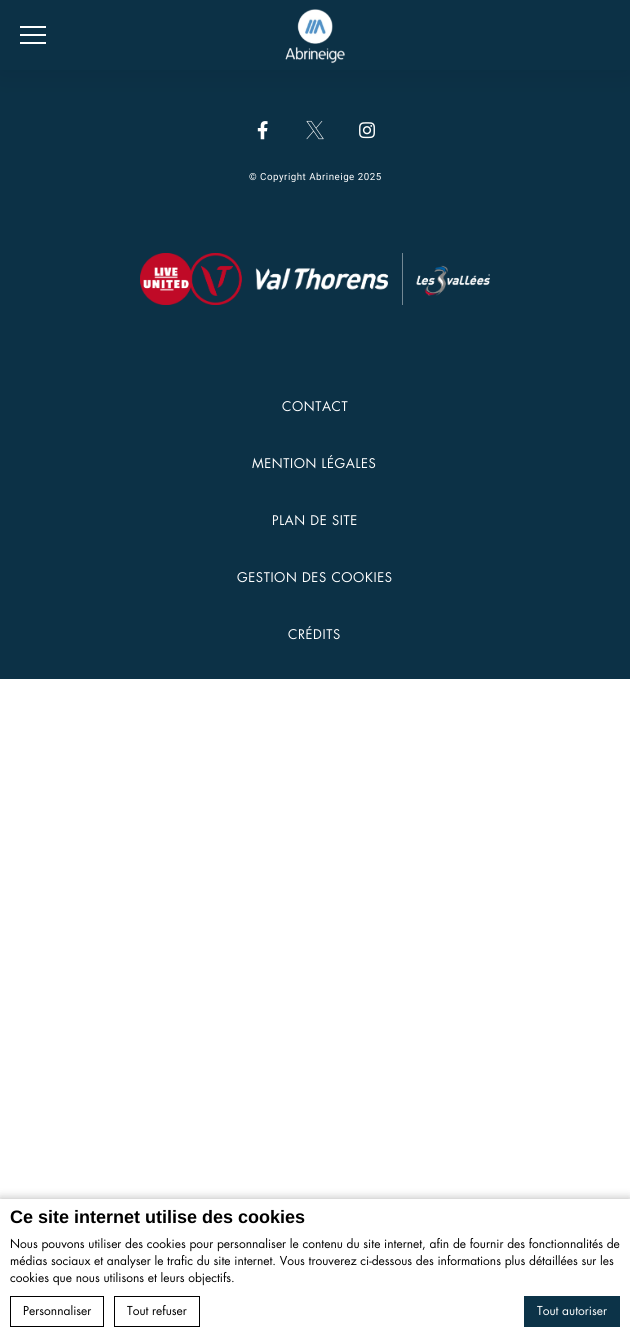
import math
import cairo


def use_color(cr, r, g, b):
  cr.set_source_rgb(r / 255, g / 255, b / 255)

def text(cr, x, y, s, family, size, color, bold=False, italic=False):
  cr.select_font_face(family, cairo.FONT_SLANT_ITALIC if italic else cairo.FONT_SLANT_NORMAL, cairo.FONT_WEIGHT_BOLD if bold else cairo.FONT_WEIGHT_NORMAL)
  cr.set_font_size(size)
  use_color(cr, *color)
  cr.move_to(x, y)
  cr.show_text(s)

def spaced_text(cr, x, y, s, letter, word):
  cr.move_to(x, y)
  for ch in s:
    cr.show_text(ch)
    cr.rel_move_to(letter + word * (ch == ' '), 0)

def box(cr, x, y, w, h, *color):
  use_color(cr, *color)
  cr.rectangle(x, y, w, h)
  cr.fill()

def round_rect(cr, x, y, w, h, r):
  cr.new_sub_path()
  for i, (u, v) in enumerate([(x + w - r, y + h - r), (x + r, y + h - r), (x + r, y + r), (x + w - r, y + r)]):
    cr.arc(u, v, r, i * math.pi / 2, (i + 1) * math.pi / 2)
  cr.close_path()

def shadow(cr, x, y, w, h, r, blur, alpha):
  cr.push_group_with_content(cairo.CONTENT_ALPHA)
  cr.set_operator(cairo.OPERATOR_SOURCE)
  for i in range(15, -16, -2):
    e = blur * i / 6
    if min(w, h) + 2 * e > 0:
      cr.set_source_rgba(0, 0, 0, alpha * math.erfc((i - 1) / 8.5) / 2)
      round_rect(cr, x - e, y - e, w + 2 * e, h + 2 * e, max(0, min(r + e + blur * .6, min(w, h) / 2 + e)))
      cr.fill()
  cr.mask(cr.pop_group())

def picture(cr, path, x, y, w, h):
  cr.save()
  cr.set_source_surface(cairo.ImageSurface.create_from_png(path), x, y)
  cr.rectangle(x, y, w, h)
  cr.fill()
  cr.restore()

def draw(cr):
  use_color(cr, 255, 255, 255)
  cr.paint()
  box(cr, 0, 70, 630, 609, 12, 49, 70)
  use_color(cr, 0, 0, 0)
  shadow(cr, 0, 0, 630, 70, 0, 15, 0.1)
  box(cr, 0, 0, 630, 70, 12, 49, 70)
  box(cr, 20, 26, 26, 2, 255, 255, 255)
  box(cr, 20, 42, 26, 2, 255, 255, 255)
  box(cr, 20, 34, 26, 2, 255, 255, 255)
  picture(cr, "img_01.png", 285, 9, 60, 55)
  picture(cr, "img_02.png", 257, 121, 11, 19)
  picture(cr, "img_03.png", 306, 120, 18, 20)
  picture(cr, "img_04.png", 359, 122, 16, 17)
  picture(cr, "img_05.png", 140, 253, 350, 52)
  use_color(cr, 0, 0, 0)
  shadow(cr, 0, 1199, 630, 143, 0, 5, 0.3)
  box(cr, 0, 1199, 630, 143, 255, 255, 255)
  cr.rectangle(10.5, 1296.5, 93, 30)
  use_color(cr, 0, 0, 0)
  cr.set_line_width(1)
  cr.stroke()
  cr.rectangle(114.5, 1296.5, 85, 30)
  cr.stroke()
  box(cr, 524, 1296, 96, 31, 12, 51, 72)
  cr.select_font_face("Roboto")
  cr.set_font_size(9.75)
  use_color(cr, 255, 255, 255)
  spaced_text(cr, 249, 180, "© Copyright Abrineige 2025", 0.5, 0)
  cr.select_font_face("Futura")
  cr.set_font_size(13)
  spaced_text(cr, 282, 411, "CONTACT", 0.6, 0)
  spaced_text(cr, 252, 468, "MENTION LÉGALES", 0.6, 0)
  spaced_text(cr, 272, 525, "PLAN DE SITE", 0.6, 0)
  spaced_text(cr, 237, 582, "GESTION DES COOKIES", 0.6, 0)
  spaced_text(cr, 288, 639, "CRÉDITS", 0.6, 0)
  text(cr, 10, 1223, "Ce site internet utilise des cookies", "Liberation Sans", 18, (0, 0, 0), bold=True)
  text(cr, 10, 1248, "Nous pouvons utiliser des cookies pour personnaliser le contenu du site internet, afin de fournir des fonctionnalités de", "Futura", 12, (0, 0, 0))
  text(cr, 10, 1265, "médias sociaux et analyser le trafic du site internet. Vous trouverez ci-dessous des informations plus détaillées sur les", "Futura", 12, (0, 0, 0))
  text(cr, 10, 1282, "cookies que nous utilisons et leurs objectifs.", "Futura", 12, (0, 0, 0))
  text(cr, 23, 1315, "Personnaliser", "Futura", 12, (0, 0, 0))
  text(cr, 127, 1315, "Tout refuser", "Futura", 12, (0, 0, 0))
  text(cr, 537, 1315, "Tout autoriser", "Futura", 12, (255, 255, 255))


surface = cairo.ImageSurface(cairo.FORMAT_RGB24, 630, 1342)
cr = cairo.Context(surface)
options = cairo.FontOptions()
options.set_hint_metrics(cairo.HINT_METRICS_OFF)
options.set_hint_style(cairo.HINT_STYLE_NONE)
cr.set_font_options(options)
cr.set_miter_limit(4)
draw(cr)
surface.write_to_png("out.png")
